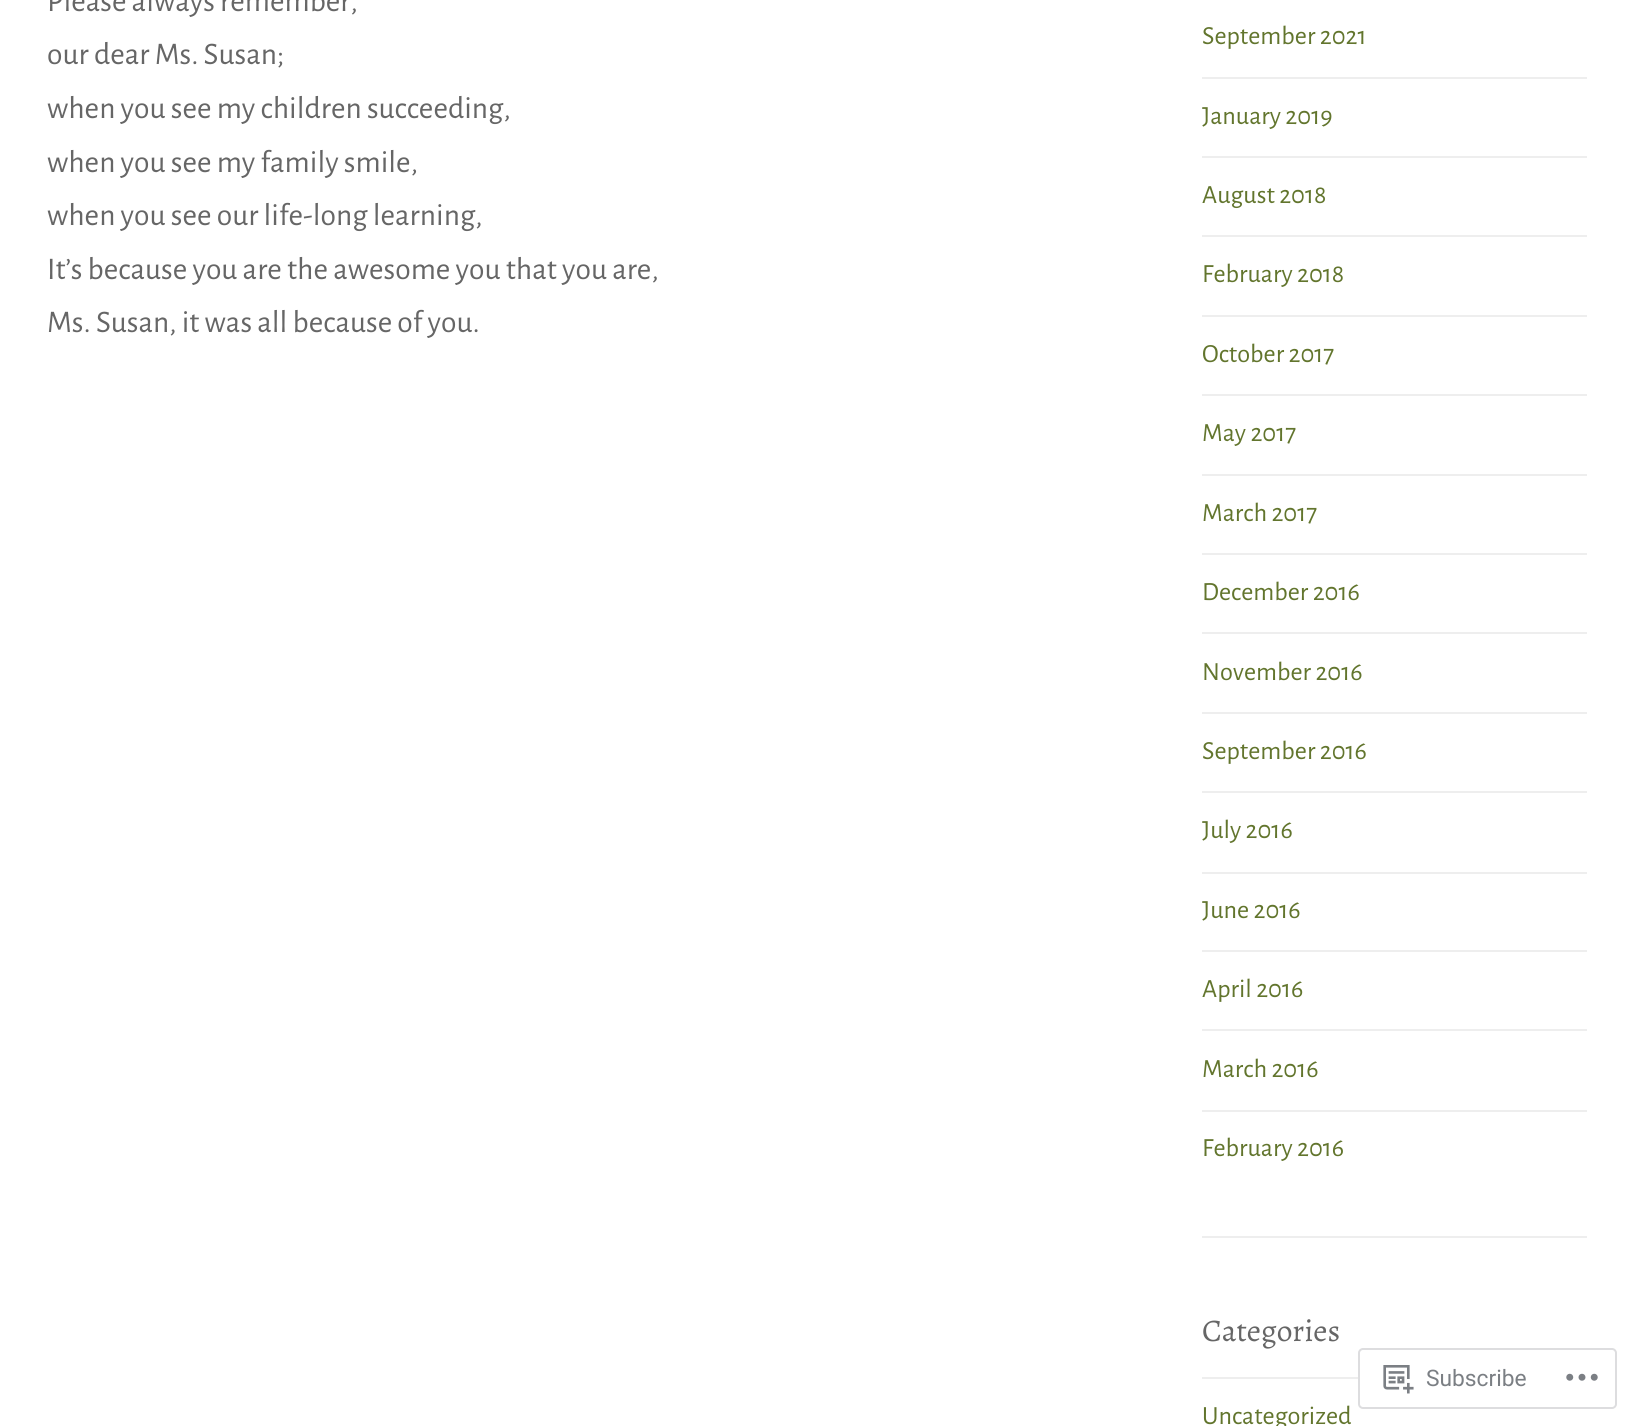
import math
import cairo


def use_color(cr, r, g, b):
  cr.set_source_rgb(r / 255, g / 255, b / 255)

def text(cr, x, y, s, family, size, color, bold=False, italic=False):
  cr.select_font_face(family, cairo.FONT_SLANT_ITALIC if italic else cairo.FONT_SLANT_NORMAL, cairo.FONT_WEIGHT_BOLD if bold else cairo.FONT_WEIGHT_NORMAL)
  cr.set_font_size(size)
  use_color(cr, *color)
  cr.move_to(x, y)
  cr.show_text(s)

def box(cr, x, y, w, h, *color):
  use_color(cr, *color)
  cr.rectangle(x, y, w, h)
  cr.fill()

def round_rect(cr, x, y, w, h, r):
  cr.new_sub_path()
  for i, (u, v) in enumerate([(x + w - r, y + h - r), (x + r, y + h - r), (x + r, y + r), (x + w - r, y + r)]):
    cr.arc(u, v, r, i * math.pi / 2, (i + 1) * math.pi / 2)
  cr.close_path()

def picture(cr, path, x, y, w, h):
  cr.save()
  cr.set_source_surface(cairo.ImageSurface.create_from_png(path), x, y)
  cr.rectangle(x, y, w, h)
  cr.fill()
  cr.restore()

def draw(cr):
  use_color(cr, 255, 255, 255)
  cr.paint()
  box(cr, 1202, 1236, 385, 2, 238, 238, 238)
  box(cr, 1202, 77, 385, 2, 238, 238, 238)
  box(cr, 1202, 156, 385, 2, 238, 238, 238)
  box(cr, 1202, 235, 385, 2, 238, 238, 238)
  box(cr, 1202, 315, 385, 2, 238, 238, 238)
  box(cr, 1202, 394, 385, 2, 238, 238, 238)
  box(cr, 1202, 474, 385, 2, 238, 238, 238)
  box(cr, 1202, 553, 385, 2, 238, 238, 238)
  box(cr, 1202, 632, 385, 2, 238, 238, 238)
  box(cr, 1202, 712, 385, 2, 238, 238, 238)
  box(cr, 1202, 791, 385, 2, 238, 238, 238)
  box(cr, 1202, 872, 385, 2, 238, 238, 238)
  box(cr, 1202, 950, 385, 2, 238, 238, 238)
  box(cr, 1202, 1029, 385, 2, 238, 238, 238)
  box(cr, 1202, 1110, 385, 2, 238, 238, 238)
  box(cr, 1202, 1377, 385, 2, 238, 238, 238)
  cr.set_source_rgba(1, 1, 1, 0.98)
  round_rect(cr, 1359, 1349, 257, 59, 4)
  cr.fill_preserve()
  use_color(cr, 221, 221, 223)
  cr.stroke()
  picture(cr, "img_01.png", 1383, 1365, 31, 29)
  picture(cr, "img_02.png", 1566, 1373, 32, 8)
  text(cr, 47, 11, "Please always remember,", "Alegreya Sans", 31.5, (102, 102, 102))
  text(cr, 47, 64, "our dear Ms. Susan;", "Alegreya Sans", 31.5, (102, 102, 102))
  text(cr, 47, 118, "when you see my children succeeding,", "Alegreya Sans", 31.5, (102, 102, 102))
  text(cr, 47, 172, "when you see my family smile,", "Alegreya Sans", 31.5, (102, 102, 102))
  text(cr, 47, 225, "when you see our life-long learning,", "Alegreya Sans", 31.5, (102, 102, 102))
  text(cr, 47, 279, "It’s because you are the awesome you that you are,", "Alegreya Sans", 31.5, (102, 102, 102))
  text(cr, 47, 332, "Ms. Susan, it was all because of you.", "Alegreya Sans", 31.5, (102, 102, 102))
  text(cr, 1202, 44, "September 2021", "Alegreya Sans", 26.25, (98, 117, 45))
  text(cr, 1202, 124, "January 2019", "Alegreya Sans", 26.25, (98, 117, 45))
  text(cr, 1202, 203, "August 2018", "Alegreya Sans", 26.25, (98, 117, 45))
  text(cr, 1202, 282, "February 2018", "Alegreya Sans", 26.25, (98, 117, 45))
  text(cr, 1202, 362, "October 2017", "Alegreya Sans", 26.25, (98, 117, 45))
  text(cr, 1202, 441, "May 2017", "Alegreya Sans", 26.25, (98, 117, 45))
  text(cr, 1202, 521, "March 2017", "Alegreya Sans", 26.25, (98, 117, 45))
  text(cr, 1202, 600, "December 2016", "Alegreya Sans", 26.25, (98, 117, 45))
  text(cr, 1202, 680, "November 2016", "Alegreya Sans", 26.25, (98, 117, 45))
  text(cr, 1202, 759, "September 2016", "Alegreya Sans", 26.25, (98, 117, 45))
  text(cr, 1202, 838, "July 2016", "Alegreya Sans", 26.25, (98, 117, 45))
  text(cr, 1202, 918, "June 2016", "Alegreya Sans", 26.25, (98, 117, 45))
  text(cr, 1202, 997, "April 2016", "Alegreya Sans", 26.25, (98, 117, 45))
  text(cr, 1202, 1077, "March 2016", "Alegreya Sans", 26.25, (98, 117, 45))
  text(cr, 1202, 1156, "February 2016", "Alegreya Sans", 26.25, (98, 117, 45))
  text(cr, 1202, 1341, "Categories", "Alegreya", 31.5, (102, 102, 102))
  text(cr, 1202, 1424, "Uncategorized", "Alegreya Sans", 26.25, (98, 117, 45))
  text(cr, 1426, 1386, "Subscribe", "Roboto", 22.75, (123, 127, 132))


surface = cairo.ImageSurface(cairo.FORMAT_RGB24, 1634, 1426)
cr = cairo.Context(surface)
options = cairo.FontOptions()
options.set_hint_metrics(cairo.HINT_METRICS_OFF)
options.set_hint_style(cairo.HINT_STYLE_NONE)
cr.set_font_options(options)
cr.set_miter_limit(4)
draw(cr)
surface.write_to_png("out.png")
